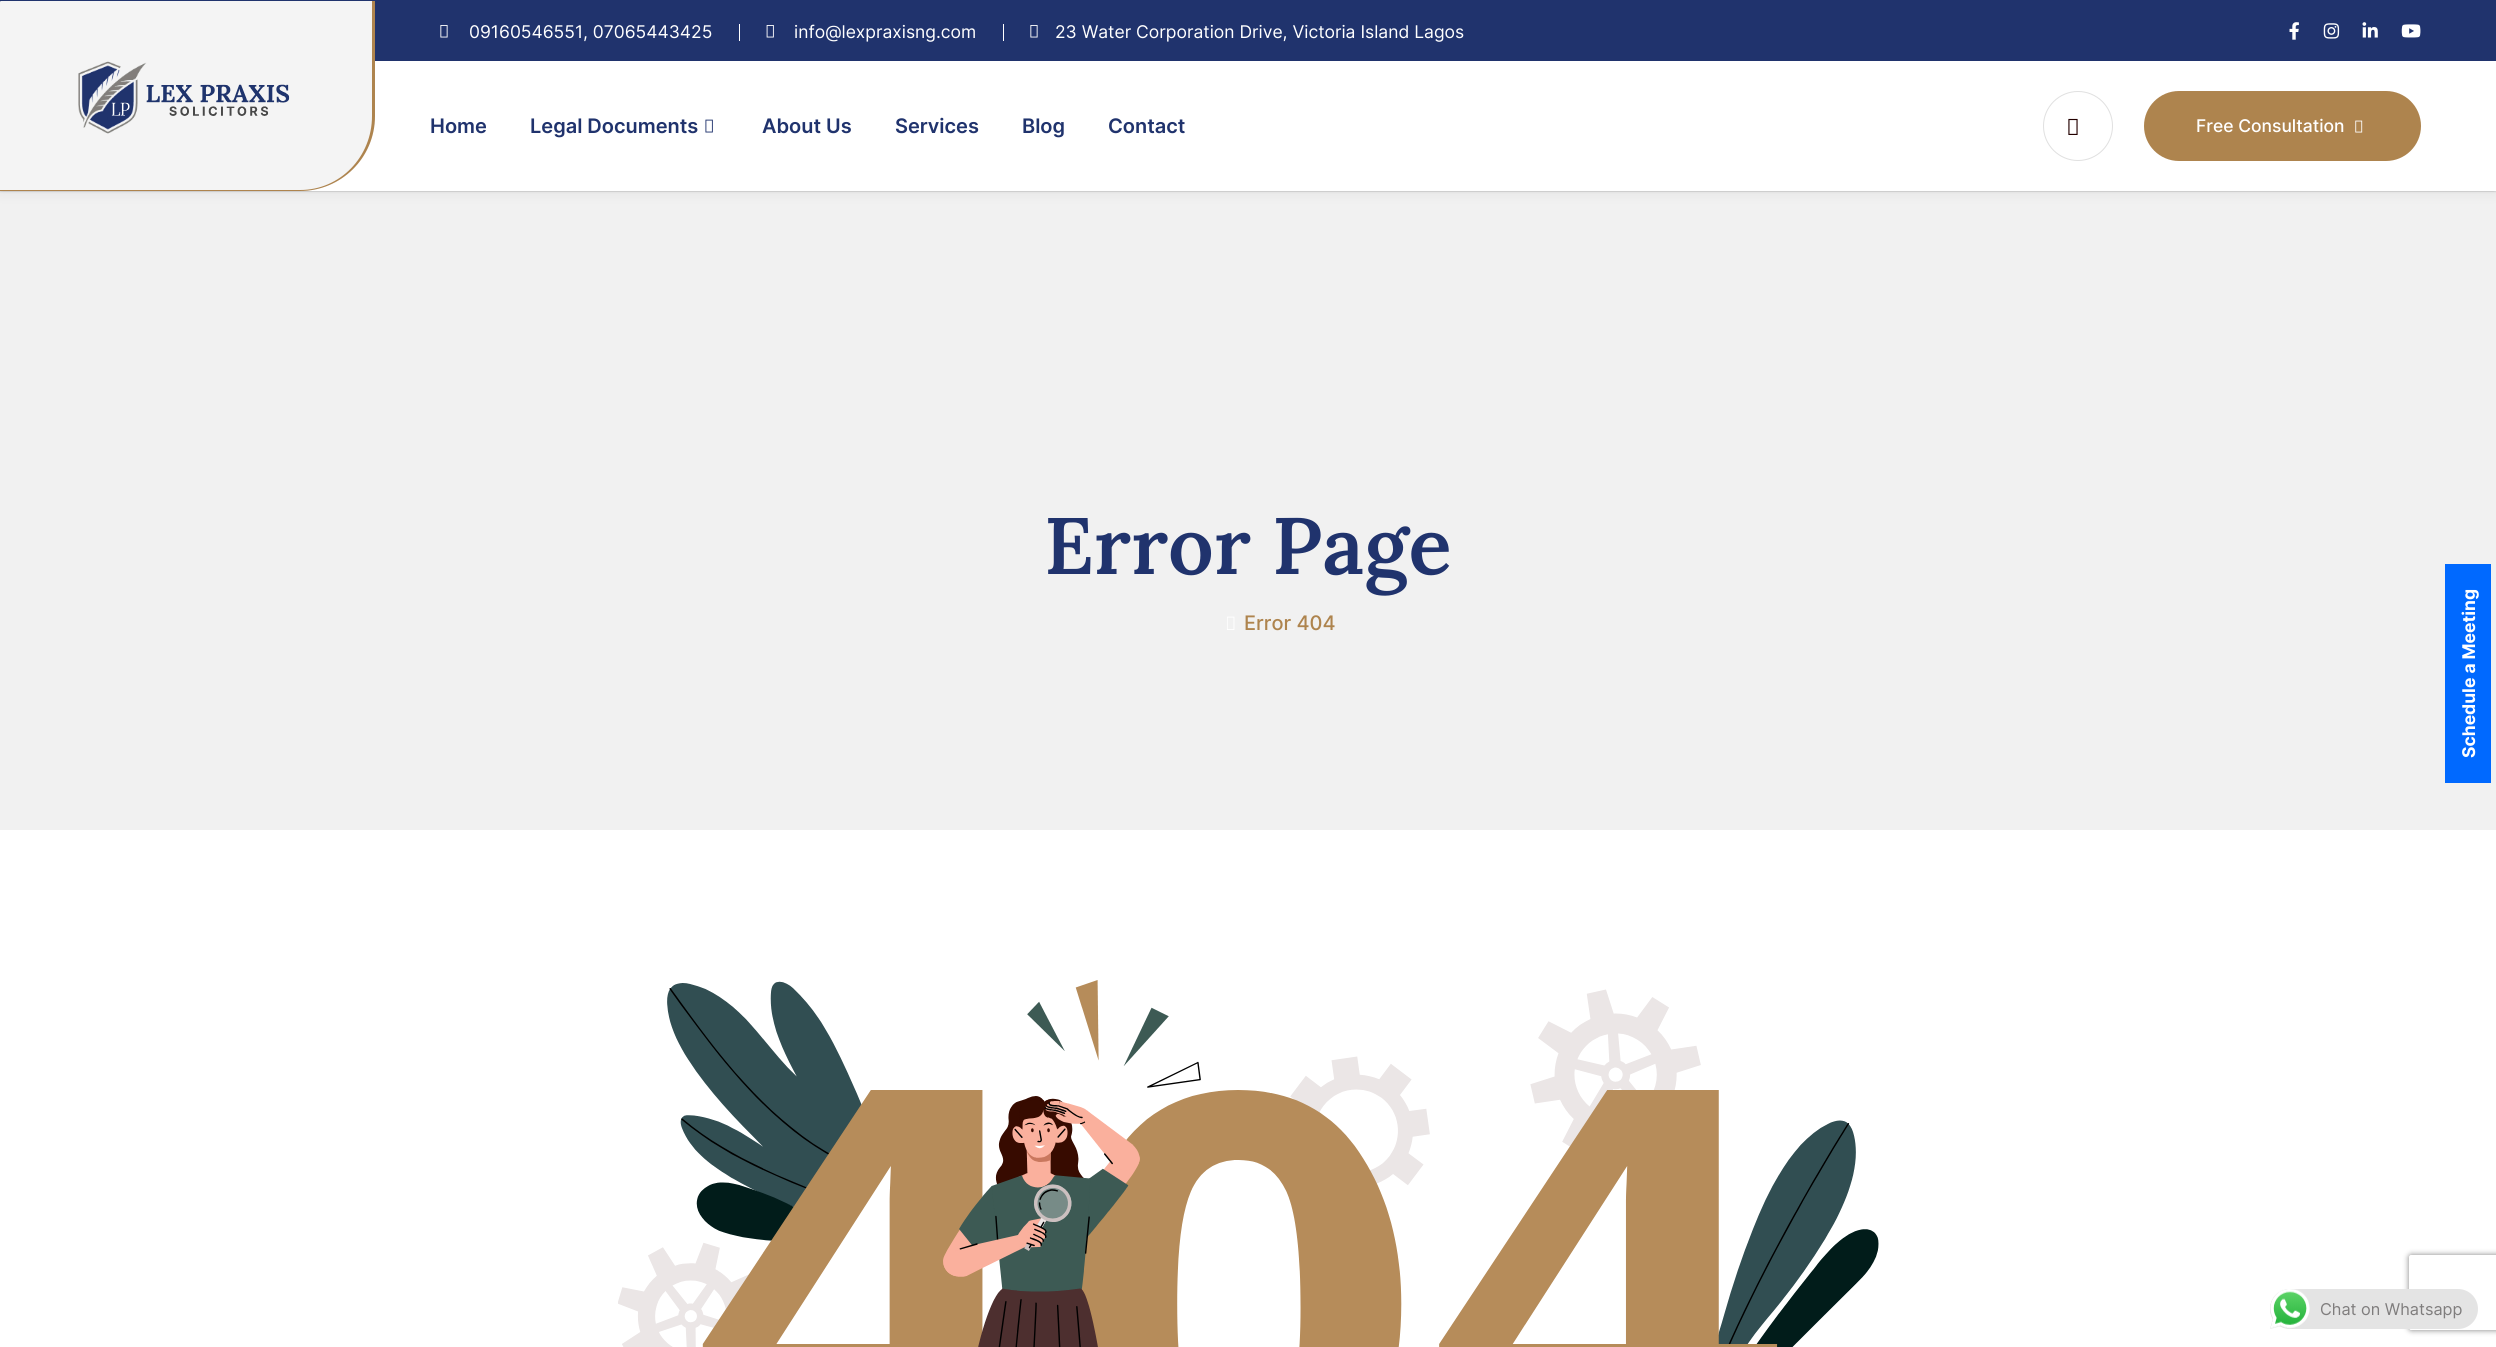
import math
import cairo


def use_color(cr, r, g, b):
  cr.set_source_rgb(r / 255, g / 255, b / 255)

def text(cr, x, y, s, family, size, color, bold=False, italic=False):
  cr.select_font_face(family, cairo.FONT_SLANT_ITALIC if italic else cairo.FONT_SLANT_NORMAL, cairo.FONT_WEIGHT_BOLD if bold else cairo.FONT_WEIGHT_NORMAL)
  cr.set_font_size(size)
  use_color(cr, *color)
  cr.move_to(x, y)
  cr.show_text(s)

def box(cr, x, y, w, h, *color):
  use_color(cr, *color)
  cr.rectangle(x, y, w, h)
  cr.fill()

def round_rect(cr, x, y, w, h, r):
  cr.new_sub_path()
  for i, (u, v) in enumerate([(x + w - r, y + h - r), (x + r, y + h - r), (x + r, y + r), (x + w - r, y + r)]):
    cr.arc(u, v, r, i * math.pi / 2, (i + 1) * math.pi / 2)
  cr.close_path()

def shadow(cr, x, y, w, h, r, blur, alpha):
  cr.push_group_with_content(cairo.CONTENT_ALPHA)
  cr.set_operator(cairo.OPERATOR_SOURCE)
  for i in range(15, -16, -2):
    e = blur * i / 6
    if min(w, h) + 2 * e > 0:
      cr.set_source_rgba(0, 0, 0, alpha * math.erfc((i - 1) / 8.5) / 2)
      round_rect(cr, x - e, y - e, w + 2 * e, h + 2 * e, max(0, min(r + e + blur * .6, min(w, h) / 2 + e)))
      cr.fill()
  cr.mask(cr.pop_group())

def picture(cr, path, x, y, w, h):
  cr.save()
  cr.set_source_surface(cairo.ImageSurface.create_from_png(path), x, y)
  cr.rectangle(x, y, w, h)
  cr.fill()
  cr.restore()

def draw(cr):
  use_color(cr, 255, 255, 255)
  cr.paint()
  cr.save()
  cr.set_fill_rule(cairo.FILL_RULE_EVEN_ODD)
  cr.new_path()
  cr.move_to(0, 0)
  cr.line_to(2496, 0)
  cr.line_to(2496, 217)
  cr.line_to(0, 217)
  cr.close_path()
  cr.move_to(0, 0)
  cr.line_to(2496, 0)
  cr.line_to(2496, 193)
  cr.line_to(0, 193)
  cr.close_path()
  cr.clip()
  use_color(cr, 193, 193, 193)
  shadow(cr, 0, 0, 2496, 193, 0, 7.5, 0.5)
  cr.restore()
  box(cr, 0, 191, 2496, 1, 236, 236, 236)
  cr.save()
  cr.rectangle(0, 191, 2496, 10)
  cr.clip()
  use_color(cr, 116, 116, 116)
  shadow(cr, 0, 0, 2496, 191, 0, 6, 0.5)
  cr.restore()
  box(cr, 0, 0, 2496, 61, 32, 51, 109)
  picture(cr, "img_01.png", 440, 25, 8, 13)
  box(cr, 739, 24, 1, 17, 255, 255, 255)
  picture(cr, "img_02.png", 766, 25, 8, 13)
  box(cr, 1003, 24, 1, 17, 255, 255, 255)
  picture(cr, "img_01.png", 1030, 25, 8, 13)
  picture(cr, "img_03.png", 2289, 22, 10, 18)
  picture(cr, "img_04.png", 2323, 23, 17, 16)
  picture(cr, "img_05.png", 2362, 22, 16, 16)
  picture(cr, "img_06.png", 2401, 24, 20, 14)
  use_color(cr, 244, 244, 244)
  cr.new_path()
  cr.move_to(1, 1)
  cr.line_to(375, 1)
  cr.line_to(375, 116)
  cr.curve_to(375, 157.5, 341.5, 191, 300, 191)
  cr.line_to(0, 191)
  cr.line_to(0, 2)
  cr.curve_to(0, 1.5, 0.5, 1, 1, 1)
  cr.close_path()
  cr.fill()
  use_color(cr, 174, 132, 78)
  cr.set_fill_rule(cairo.FILL_RULE_EVEN_ODD)
  cr.new_path()
  cr.move_to(1, 1)
  cr.line_to(375, 1)
  cr.line_to(375, 116)
  cr.curve_to(375, 158, 341, 191, 300, 191)
  cr.line_to(0, 191)
  cr.line_to(0, 2)
  cr.curve_to(0, 2, 1, 1, 1, 1)
  cr.close_path()
  cr.move_to(1, 1)
  cr.line_to(372, 1)
  cr.line_to(372, 116)
  cr.curve_to(372, 157, 340, 190, 300, 190)
  cr.line_to(0, 190)
  cr.line_to(0, 2)
  cr.curve_to(0, 2, 1, 1, 1, 1)
  cr.close_path()
  cr.fill()
  picture(cr, "img_07.png", 78, 61, 212, 73)
  picture(cr, "img_08.png", 705, 119, 8, 14)
  cr.arc(2078, 126, 34.5, 0, 2 * math.pi)
  use_color(cr, 224, 224, 224)
  cr.set_line_width(1)
  cr.stroke()
  picture(cr, "img_09.png", 2068, 118, 10, 17)
  use_color(cr, 174, 132, 78)
  round_rect(cr, 2144, 91, 277, 70, 35)
  cr.fill()
  picture(cr, "img_10.png", 2355, 120, 8, 13)
  cr.set_source_rgba(0.929, 0.929, 0.929, 0.8)
  cr.rectangle(0, 193, 2496, 637)
  cr.fill()
  picture(cr, "img_11.png", 1227, 616, 8, 14)
  picture(cr, "img_12.png", 618, 980, 1261, 367)
  box(cr, 2445, 564, 46, 219, 0, 105, 255)
  cr.save()
  cr.new_path()
  cr.move_to(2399, 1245)
  cr.line_to(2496, 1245)
  cr.line_to(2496, 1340)
  cr.line_to(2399, 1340)
  cr.close_path()
  cr.move_to(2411.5, 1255)
  cr.line_to(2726.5, 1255)
  cr.curve_to(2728, 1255, 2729, 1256, 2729, 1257.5)
  cr.line_to(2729, 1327.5)
  cr.curve_to(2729, 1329, 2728, 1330, 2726.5, 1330)
  cr.line_to(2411.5, 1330)
  cr.curve_to(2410, 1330, 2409, 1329, 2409, 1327.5)
  cr.line_to(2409, 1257.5)
  cr.curve_to(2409, 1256, 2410, 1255, 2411.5, 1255)
  cr.close_path()
  cr.clip()
  use_color(cr, 128, 128, 128)
  shadow(cr, 2409, 1255, 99, 75, 2.5, 3, 1)
  cr.restore()
  use_color(cr, 228, 228, 228)
  round_rect(cr, 2270, 1289, 208, 40, 20)
  cr.fill()
  picture(cr, "img_13.png", 2270, 1289, 40, 40)
  text(cr, 469, 38, "09160546551, 07065443425", "Inter", 17.5, (255, 255, 255))
  text(cr, 794, 38, "info@lexpraxisng.com", "Inter", 17.5, (255, 255, 255))
  text(cr, 1055, 38, "23 Water Corporation Drive, Victoria Island Lagos", "Inter", 17.5, (255, 255, 255))
  text(cr, 430, 133, "Home", "Inter SemiBold", 20, (32, 51, 109))
  text(cr, 530, 133, "Legal Documents", "Inter SemiBold", 20, (32, 51, 109))
  text(cr, 762, 133, "About Us", "Inter SemiBold", 20, (32, 51, 109))
  text(cr, 895, 133, "Services", "Inter SemiBold", 20, (32, 51, 109))
  text(cr, 1022, 133, "Blog", "Inter SemiBold", 20, (32, 51, 109))
  text(cr, 1108, 133, "Contact", "Inter SemiBold", 20, (32, 51, 109))
  text(cr, 2196, 132, "Free Consultation", "Inter Medium", 17.5, (255, 255, 255))
  text(cr, 1044, 574, "Error Page", "Lora SemiBold", 80, (32, 51, 109))
  text(cr, 1244, 630, "Error 404", "Inter Medium", 20, (174, 132, 78))
  cr.save()
  cr.translate(2475, 758)
  cr.rotate(-90 * math.pi / 180)
  text(cr, 0, 0, "Schedule a Meeting", "Inter", 17.5, (255, 255, 255), bold=True)
  cr.restore()
  text(cr, 2320, 1315, "Chat on Whatsapp", "Inter", 16.25, (127, 125, 125))


surface = cairo.ImageSurface(cairo.FORMAT_RGB24, 2496, 1347)
cr = cairo.Context(surface)
options = cairo.FontOptions()
options.set_hint_metrics(cairo.HINT_METRICS_OFF)
options.set_hint_style(cairo.HINT_STYLE_NONE)
cr.set_font_options(options)
cr.set_miter_limit(4)
draw(cr)
surface.write_to_png("out.png")
